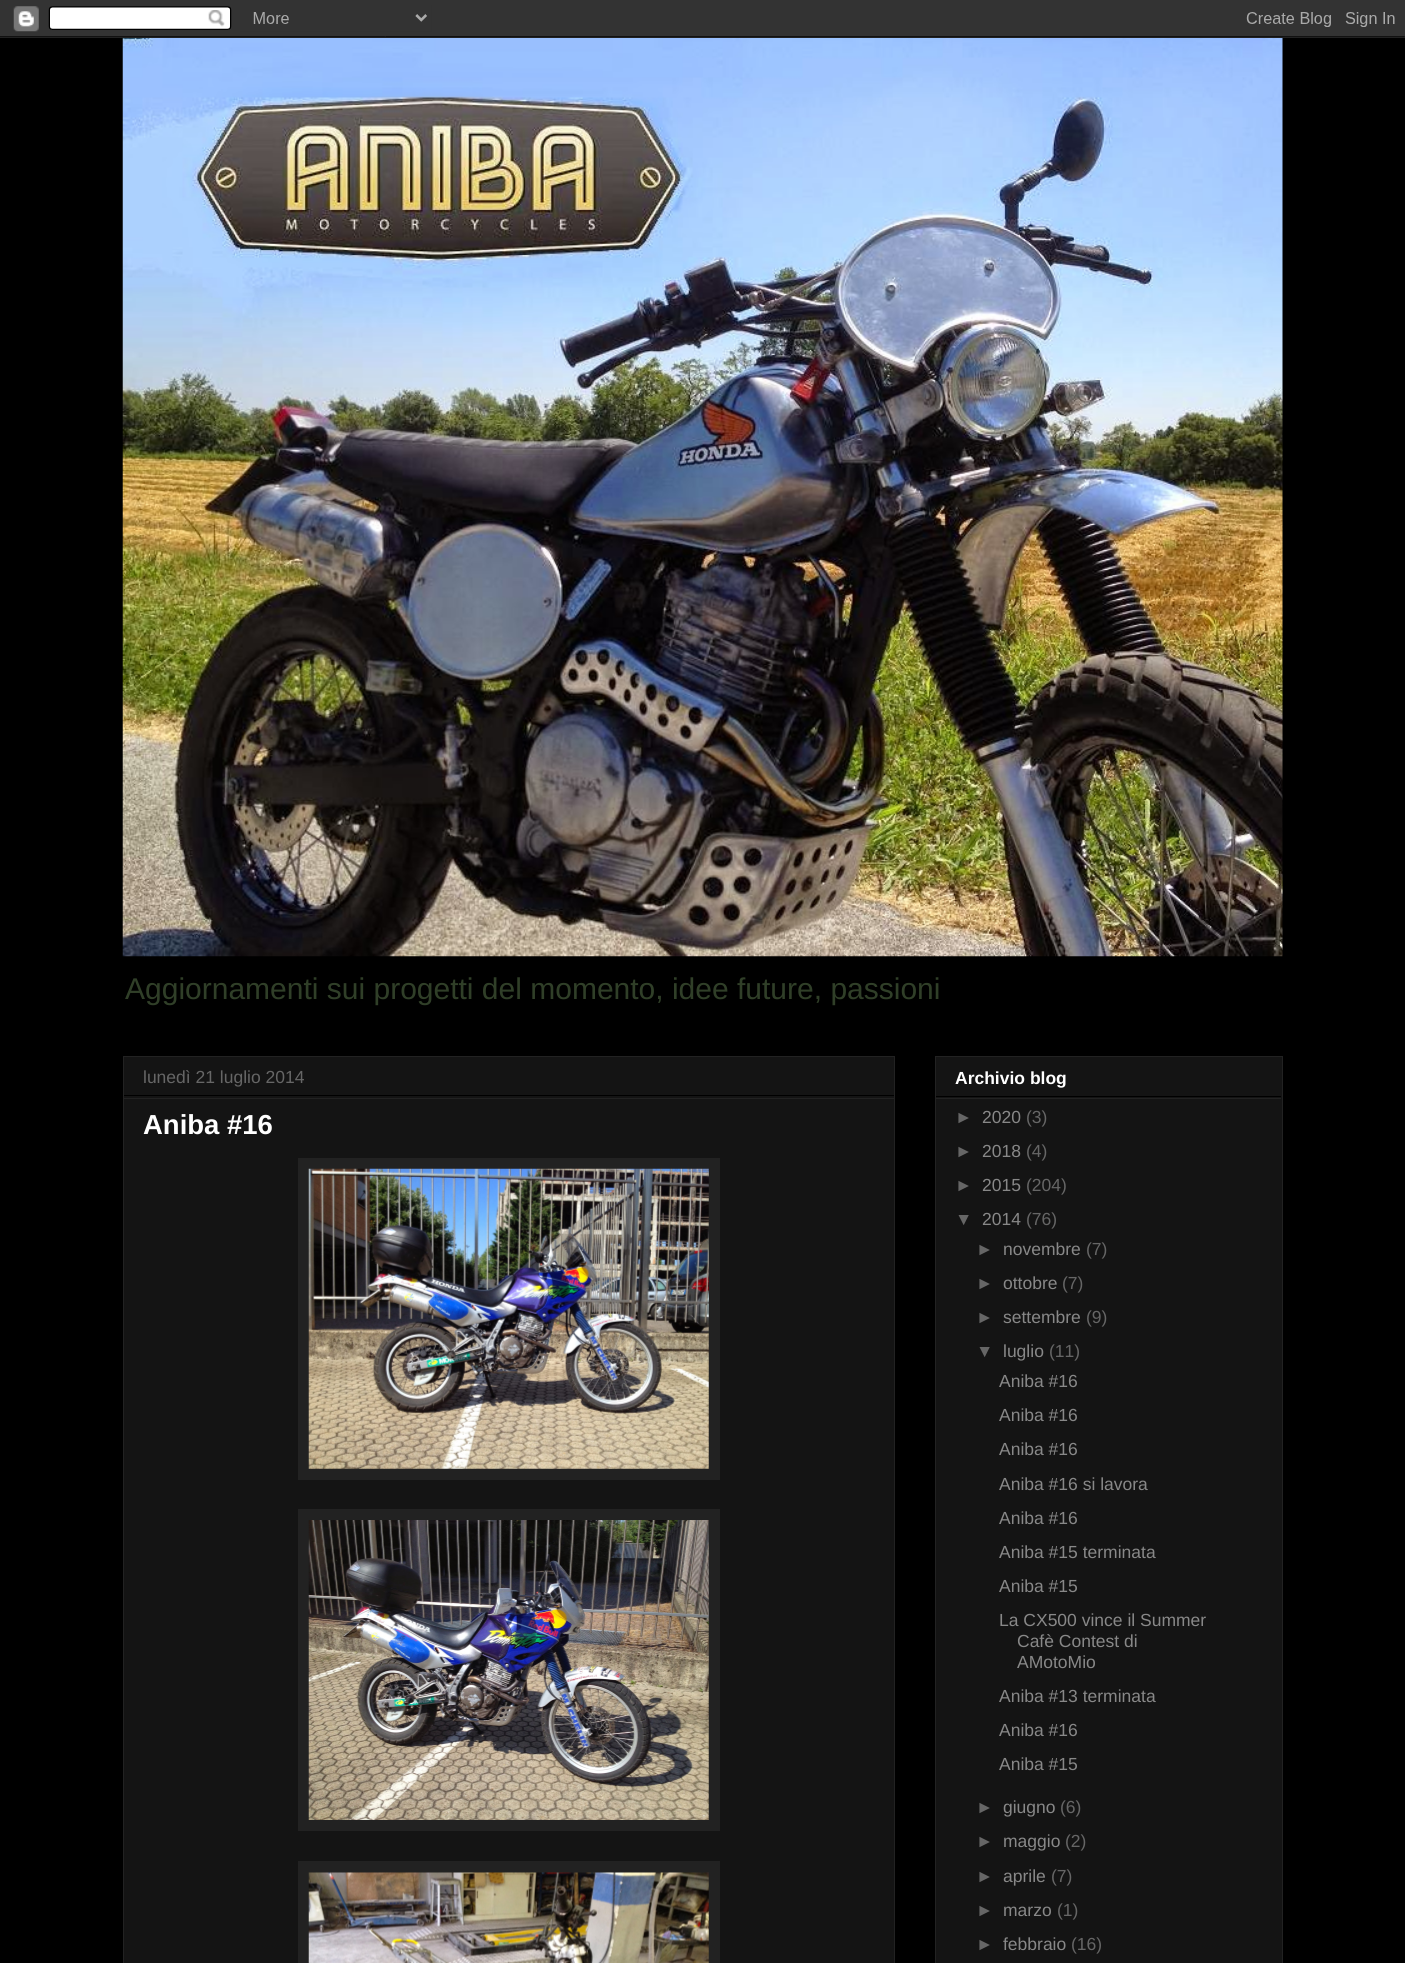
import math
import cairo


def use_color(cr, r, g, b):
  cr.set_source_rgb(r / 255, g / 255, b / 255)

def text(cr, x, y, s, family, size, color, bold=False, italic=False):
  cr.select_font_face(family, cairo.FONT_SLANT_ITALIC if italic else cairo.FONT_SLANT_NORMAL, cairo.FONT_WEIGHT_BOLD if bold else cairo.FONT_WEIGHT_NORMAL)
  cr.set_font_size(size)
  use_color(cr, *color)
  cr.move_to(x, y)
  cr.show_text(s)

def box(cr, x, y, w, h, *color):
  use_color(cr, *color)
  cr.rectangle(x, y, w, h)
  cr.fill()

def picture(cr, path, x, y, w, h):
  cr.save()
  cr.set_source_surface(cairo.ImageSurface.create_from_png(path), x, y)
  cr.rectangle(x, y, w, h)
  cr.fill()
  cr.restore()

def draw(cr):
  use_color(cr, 0, 0, 0)
  cr.paint()
  picture(cr, "img_01.png", 0, 0, 1405, 38)
  picture(cr, "img_02.png", 122, 38, 1161, 919)
  use_color(cr, 20, 20, 20)
  cr.rectangle(123.5, 1056.5, 771, 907)
  cr.fill_preserve()
  use_color(cr, 34, 34, 34)
  cr.set_line_width(1)
  cr.stroke()
  box(cr, 124, 1095, 770, 1, 0, 0, 0)
  box(cr, 124, 1098, 770, 1, 34, 34, 34)
  box(cr, 298, 1158, 422, 322, 34, 34, 34)
  picture(cr, "img_03.png", 308, 1168, 401, 301)
  box(cr, 298, 1509, 422, 322, 34, 34, 34)
  picture(cr, "img_04.png", 308, 1520, 401, 300)
  box(cr, 298, 1861, 422, 102, 34, 34, 34)
  picture(cr, "img_05.png", 308, 1872, 401, 91)
  use_color(cr, 20, 20, 20)
  cr.rectangle(935.5, 1056.5, 347, 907)
  cr.fill_preserve()
  use_color(cr, 34, 34, 34)
  cr.stroke()
  box(cr, 936, 1096, 345, 1, 0, 0, 0)
  box(cr, 936, 1098, 345, 1, 34, 34, 34)
  text(cr, 125, 999, "Aggiornamenti sui progetti del momento, idee future, passioni", "Liberation Sans", 30, (48, 63, 40))
  text(cr, 143, 1083, "lunedì 21 luglio 2014", "Liberation Sans", 17.5, (102, 102, 102))
  text(cr, 143, 1134, "Aniba #16", "Liberation Sans", 27.5, (255, 255, 255), bold=True)
  text(cr, 955, 1084, "Archivio blog", "Liberation Sans", 17.5, (255, 255, 255), bold=True)
  text(cr, 955, 1123, "►", "Liberation Sans", 17.5, (102, 102, 102))
  text(cr, 982, 1123, "2020", "Liberation Sans", 17.5, (136, 136, 136))
  text(cr, 1026, 1123, "(3)", "Liberation Sans", 17.5, (102, 102, 102))
  text(cr, 955, 1157, "►", "Liberation Sans", 17.5, (102, 102, 102))
  text(cr, 982, 1157, "2018", "Liberation Sans", 17.5, (136, 136, 136))
  text(cr, 1026, 1157, "(4)", "Liberation Sans", 17.5, (102, 102, 102))
  text(cr, 955, 1191, "►", "Liberation Sans", 17.5, (102, 102, 102))
  text(cr, 982, 1191, "2015", "Liberation Sans", 17.5, (136, 136, 136))
  text(cr, 1026, 1191, "(204)", "Liberation Sans", 17.5, (102, 102, 102))
  text(cr, 955, 1225, "▼", "Liberation Sans", 17.5, (102, 102, 102))
  text(cr, 982, 1225, "2014", "Liberation Sans", 17.5, (136, 136, 136))
  text(cr, 1026, 1225, "(76)", "Liberation Sans", 17.5, (102, 102, 102))
  text(cr, 976, 1255, "►", "Liberation Sans", 17.5, (102, 102, 102))
  text(cr, 1003, 1255, "novembre", "Liberation Sans", 17.5, (136, 136, 136))
  text(cr, 1086, 1255, "(7)", "Liberation Sans", 17.5, (102, 102, 102))
  text(cr, 976, 1289, "►", "Liberation Sans", 17.5, (102, 102, 102))
  text(cr, 1003, 1289, "ottobre", "Liberation Sans", 17.5, (136, 136, 136))
  text(cr, 1062, 1289, "(7)", "Liberation Sans", 17.5, (102, 102, 102))
  text(cr, 976, 1323, "►", "Liberation Sans", 17.5, (102, 102, 102))
  text(cr, 1003, 1323, "settembre", "Liberation Sans", 17.5, (136, 136, 136))
  text(cr, 1086, 1323, "(9)", "Liberation Sans", 17.5, (102, 102, 102))
  text(cr, 976, 1357, "▼", "Liberation Sans", 17.5, (102, 102, 102))
  text(cr, 1003, 1357, "luglio", "Liberation Sans", 17.5, (136, 136, 136))
  text(cr, 1049, 1357, "(11)", "Liberation Sans", 17.5, (102, 102, 102))
  text(cr, 999, 1387, "Aniba #16", "Liberation Sans", 17.5, (136, 136, 136))
  text(cr, 999, 1421, "Aniba #16", "Liberation Sans", 17.5, (136, 136, 136))
  text(cr, 999, 1455, "Aniba #16", "Liberation Sans", 17.5, (136, 136, 136))
  text(cr, 999, 1490, "Aniba #16 si lavora", "Liberation Sans", 17.5, (136, 136, 136))
  text(cr, 999, 1524, "Aniba #16", "Liberation Sans", 17.5, (136, 136, 136))
  text(cr, 999, 1558, "Aniba #15 terminata", "Liberation Sans", 17.5, (136, 136, 136))
  text(cr, 999, 1592, "Aniba #15", "Liberation Sans", 17.5, (136, 136, 136))
  text(cr, 999, 1626, "La CX500 vince il Summer", "Liberation Sans", 17.5, (136, 136, 136))
  text(cr, 1017, 1647, "Cafè Contest di", "Liberation Sans", 17.5, (136, 136, 136))
  text(cr, 1017, 1668, "AMotoMio", "Liberation Sans", 17.5, (136, 136, 136))
  text(cr, 999, 1702, "Aniba #13 terminata", "Liberation Sans", 17.5, (136, 136, 136))
  text(cr, 999, 1736, "Aniba #16", "Liberation Sans", 17.5, (136, 136, 136))
  text(cr, 999, 1770, "Aniba #15", "Liberation Sans", 17.5, (136, 136, 136))
  text(cr, 976, 1813, "►", "Liberation Sans", 17.5, (102, 102, 102))
  text(cr, 1003, 1813, "giugno", "Liberation Sans", 17.5, (136, 136, 136))
  text(cr, 1060, 1813, "(6)", "Liberation Sans", 17.5, (102, 102, 102))
  text(cr, 976, 1847, "►", "Liberation Sans", 17.5, (102, 102, 102))
  text(cr, 1003, 1847, "maggio", "Liberation Sans", 17.5, (136, 136, 136))
  text(cr, 1065, 1847, "(2)", "Liberation Sans", 17.5, (102, 102, 102))
  text(cr, 976, 1882, "►", "Liberation Sans", 17.5, (102, 102, 102))
  text(cr, 1003, 1882, "aprile", "Liberation Sans", 17.5, (136, 136, 136))
  text(cr, 1051, 1882, "(7)", "Liberation Sans", 17.5, (102, 102, 102))
  text(cr, 976, 1916, "►", "Liberation Sans", 17.5, (102, 102, 102))
  text(cr, 1003, 1916, "marzo", "Liberation Sans", 17.5, (136, 136, 136))
  text(cr, 1057, 1916, "(1)", "Liberation Sans", 17.5, (102, 102, 102))
  text(cr, 976, 1950, "►", "Liberation Sans", 17.5, (102, 102, 102))
  text(cr, 1003, 1950, "febbraio", "Liberation Sans", 17.5, (136, 136, 136))
  text(cr, 1071, 1950, "(16)", "Liberation Sans", 17.5, (102, 102, 102))


surface = cairo.ImageSurface(cairo.FORMAT_RGB24, 1405, 1963)
cr = cairo.Context(surface)
options = cairo.FontOptions()
options.set_hint_metrics(cairo.HINT_METRICS_OFF)
options.set_hint_style(cairo.HINT_STYLE_NONE)
cr.set_font_options(options)
cr.set_miter_limit(4)
draw(cr)
surface.write_to_png("out.png")
